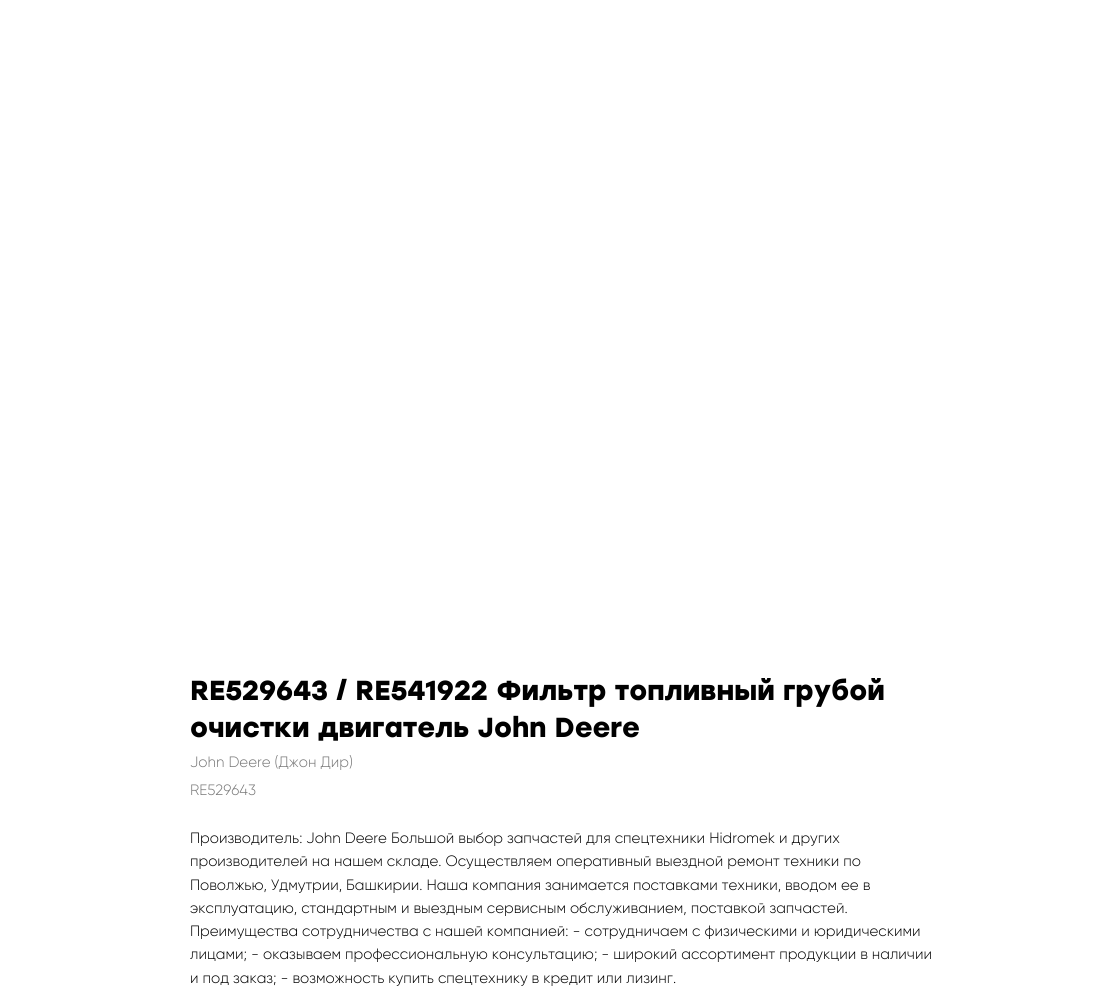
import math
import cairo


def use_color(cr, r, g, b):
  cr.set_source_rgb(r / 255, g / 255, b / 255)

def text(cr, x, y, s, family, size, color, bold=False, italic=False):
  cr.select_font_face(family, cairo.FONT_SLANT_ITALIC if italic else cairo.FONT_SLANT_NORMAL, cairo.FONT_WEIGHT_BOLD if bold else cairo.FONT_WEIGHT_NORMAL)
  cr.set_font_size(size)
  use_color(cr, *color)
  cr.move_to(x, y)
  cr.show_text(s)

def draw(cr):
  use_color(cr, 255, 255, 255)
  cr.paint()
  text(cr, 190, 700, "RE529643 / RE541922 Фильтр топливный грубой", "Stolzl", 27.5, (0, 0, 0), bold=True)
  text(cr, 190, 737, "очистки двигатель John Deere", "Stolzl", 27.5, (0, 0, 0), bold=True)
  text(cr, 190, 767, "John Deere (Джон Дир)", "Gilroy Light", 15, (119, 119, 119))
  text(cr, 190, 795, "RE529643", "Gilroy Light", 15, (119, 119, 119))
  text(cr, 190, 843, "Производитель: John Deere Большой выбор запчастей для спецтехники Hidromek и других", "Gilroy Light", 15, (0, 0, 0))
  text(cr, 190, 866, "производителей на нашем складе. Осуществляем оперативный выездной ремонт техники по", "Gilroy Light", 15, (0, 0, 0))
  text(cr, 190, 890, "Поволжью, Удмутрии, Башкирии. Наша компания занимается поставками техники, вводом ее в", "Gilroy Light", 15, (0, 0, 0))
  text(cr, 190, 913, "эксплуатацию, стандартным и выездным сервисным обслуживанием, поставкой запчастей.", "Gilroy Light", 15, (0, 0, 0))
  text(cr, 190, 936, "Преимущества сотрудничества с нашей компанией: - сотрудничаем с физическими и юридическими", "Gilroy Light", 15, (0, 0, 0))
  text(cr, 190, 959, "лицами; - оказываем профессиональную консультацию; - широкий ассортимент продукции в наличии", "Gilroy Light", 15, (0, 0, 0))
  text(cr, 190, 983, "и под заказ; - возможность купить спецтехнику в кредит или лизинг.", "Gilroy Light", 15, (0, 0, 0))


surface = cairo.ImageSurface(cairo.FORMAT_RGB24, 1104, 1007)
cr = cairo.Context(surface)
options = cairo.FontOptions()
options.set_hint_metrics(cairo.HINT_METRICS_OFF)
options.set_hint_style(cairo.HINT_STYLE_NONE)
cr.set_font_options(options)
cr.set_miter_limit(4)
draw(cr)
surface.write_to_png("out.png")
